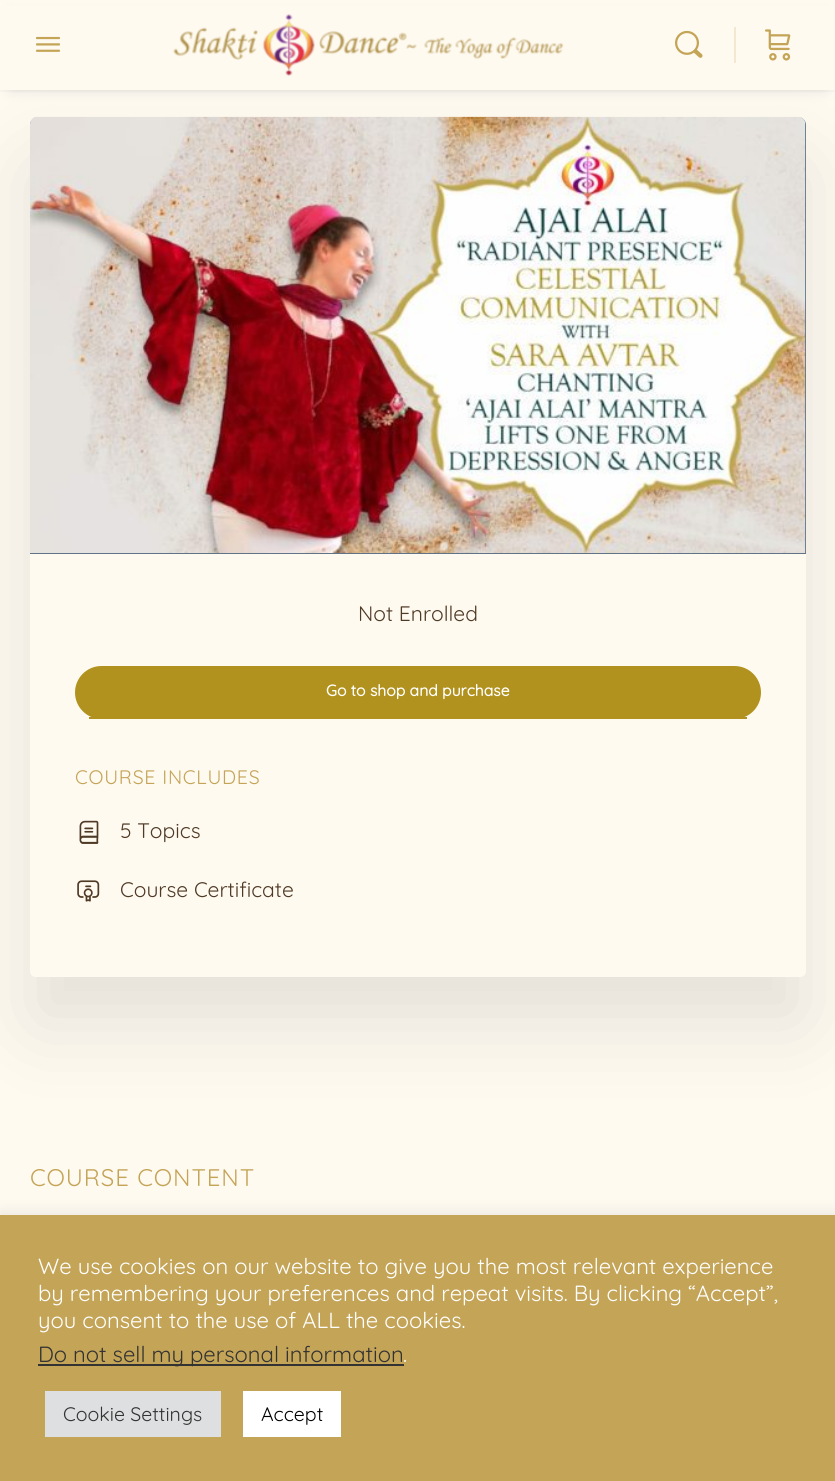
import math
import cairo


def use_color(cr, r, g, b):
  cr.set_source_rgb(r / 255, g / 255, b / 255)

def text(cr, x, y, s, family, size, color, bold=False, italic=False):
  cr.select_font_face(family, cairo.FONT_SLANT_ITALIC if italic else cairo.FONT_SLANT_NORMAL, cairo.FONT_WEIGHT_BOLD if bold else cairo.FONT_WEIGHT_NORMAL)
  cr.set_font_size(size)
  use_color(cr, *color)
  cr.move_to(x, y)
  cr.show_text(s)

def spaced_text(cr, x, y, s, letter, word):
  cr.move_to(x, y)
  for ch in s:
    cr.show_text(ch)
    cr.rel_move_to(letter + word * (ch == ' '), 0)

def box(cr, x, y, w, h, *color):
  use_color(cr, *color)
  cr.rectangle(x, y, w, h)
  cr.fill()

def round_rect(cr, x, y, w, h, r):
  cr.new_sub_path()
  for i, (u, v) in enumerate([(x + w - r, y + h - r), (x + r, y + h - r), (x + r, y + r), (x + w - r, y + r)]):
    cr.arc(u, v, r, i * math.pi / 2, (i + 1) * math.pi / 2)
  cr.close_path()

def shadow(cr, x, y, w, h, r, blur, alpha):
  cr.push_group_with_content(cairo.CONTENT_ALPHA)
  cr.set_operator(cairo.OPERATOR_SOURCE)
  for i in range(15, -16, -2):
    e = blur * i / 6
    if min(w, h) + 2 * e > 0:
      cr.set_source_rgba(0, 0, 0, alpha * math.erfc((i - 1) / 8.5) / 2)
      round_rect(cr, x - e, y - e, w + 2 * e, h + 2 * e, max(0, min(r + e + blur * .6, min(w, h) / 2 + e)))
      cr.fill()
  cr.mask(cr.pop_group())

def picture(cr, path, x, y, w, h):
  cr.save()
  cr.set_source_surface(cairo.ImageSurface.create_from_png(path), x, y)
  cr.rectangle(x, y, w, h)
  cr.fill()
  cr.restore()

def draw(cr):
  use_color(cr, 255, 250, 240)
  cr.paint()
  use_color(cr, 65, 71, 108)
  shadow(cr, 11, 18, 814, 69, 0, 7.5, 0.25)
  use_color(cr, 0, 0, 0)
  shadow(cr, 30, 165, 776, 860, 6, 40.5, 0.1)
  cr.set_source_rgba(0.545, 0.553, 0.616, 0.05)
  cr.new_path()
  cr.move_to(0, 90)
  cr.line_to(0, 92)
  cr.line_to(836, 92)
  cr.line_to(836, 2)
  cr.line_to(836, 90)
  cr.close_path()
  cr.fill()
  box(cr, 0, 6, 835, 84, 255, 250, 240)
  picture(cr, "img_01.png", 36, 36, 24, 16)
  picture(cr, "img_02.png", 173, 14, 391, 62)
  picture(cr, "img_03.png", 675, 30, 28, 28)
  box(cr, 734, 27, 2, 36, 243, 233, 209)
  picture(cr, "img_04.png", 765, 29, 26, 32)
  use_color(cr, 96, 115, 135)
  cr.new_path()
  cr.move_to(38, 117)
  cr.line_to(798, 117)
  cr.curve_to(802.5, 117, 806, 120.5, 806, 125)
  cr.line_to(806, 554)
  cr.line_to(30, 554)
  cr.line_to(30, 125)
  cr.curve_to(30, 120.5, 33.5, 117, 38, 117)
  cr.close_path()
  cr.fill()
  picture(cr, "img_05.png", 30, 116, 776, 437)
  use_color(cr, 255, 250, 240)
  cr.new_path()
  cr.move_to(30, 554)
  cr.line_to(806, 554)
  cr.line_to(806, 971)
  cr.curve_to(806, 974.5, 803.5, 977, 800, 977)
  cr.line_to(36, 977)
  cr.curve_to(32.5, 977, 30, 974.5, 30, 971)
  cr.close_path()
  cr.fill()
  use_color(cr, 178, 146, 30)
  round_rect(cr, 75, 666, 686, 53, 26.5)
  cr.fill()
  box(cr, 89, 717, 658, 2, 178, 146, 30)
  picture(cr, "img_06.png", 79, 820, 20, 24)
  picture(cr, "img_07.png", 77, 880, 23, 22)
  use_color(cr, 172, 171, 171)
  shadow(cr, 0, 1214, 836, 267, 0, 7.5, 0.3)
  box(cr, 0, 1215, 835, 266, 196, 164, 87)
  box(cr, 38, 1364, 366, 2, 51, 51, 51)
  box(cr, 45, 1391, 176, 46, 222, 223, 224)
  box(cr, 243, 1391, 98, 46, 255, 255, 255)
  text(cr, 358, 621, "Not Enrolled", "Quicksand Light", 21, (79, 58, 38))
  text(cr, 326, 696, "Go to shop and purchase", "Quicksand", 15.75, (255, 255, 255), bold=True)
  cr.select_font_face("Quicksand Light")
  cr.set_font_size(19.5)
  use_color(cr, 196, 164, 87)
  spaced_text(cr, 75, 784, "COURSE INCLUDES", 0.75, 0)
  text(cr, 120, 838, "5 Topics", "Quicksand Light", 21, (79, 58, 38))
  text(cr, 120, 897, "Course Certificate", "Quicksand Light", 21, (79, 58, 38))
  cr.set_font_size(24)
  use_color(cr, 196, 164, 87)
  spaced_text(cr, 30, 1186, "COURSE CONTENT", 0.9, 0)
  text(cr, 38, 1274, "We use cookies on our website to give you the most relevant experience", "Quicksand Light", 22, (255, 255, 255))
  text(cr, 38, 1301, "by remembering your preferences and repeat visits. By clicking “Accept”,", "Quicksand Light", 22, (255, 255, 255))
  text(cr, 38, 1328, "you consent to the use of ALL the cookies.", "Quicksand Light", 22, (255, 255, 255))
  text(cr, 38, 1362, "Do not sell my personal information", "Quicksand Light", 22, (51, 51, 51))
  text(cr, 403, 1362, ".", "Quicksand Light", 22, (255, 255, 255))
  text(cr, 63, 1421, "Cookie Settings", "Quicksand Light", 19.5, (51, 51, 51))
  text(cr, 261, 1421, "Accept", "Quicksand Light", 19.5, (0, 0, 0))


surface = cairo.ImageSurface(cairo.FORMAT_RGB24, 835, 1481)
cr = cairo.Context(surface)
options = cairo.FontOptions()
options.set_hint_metrics(cairo.HINT_METRICS_OFF)
options.set_hint_style(cairo.HINT_STYLE_NONE)
cr.set_font_options(options)
cr.set_miter_limit(4)
draw(cr)
surface.write_to_png("out.png")
